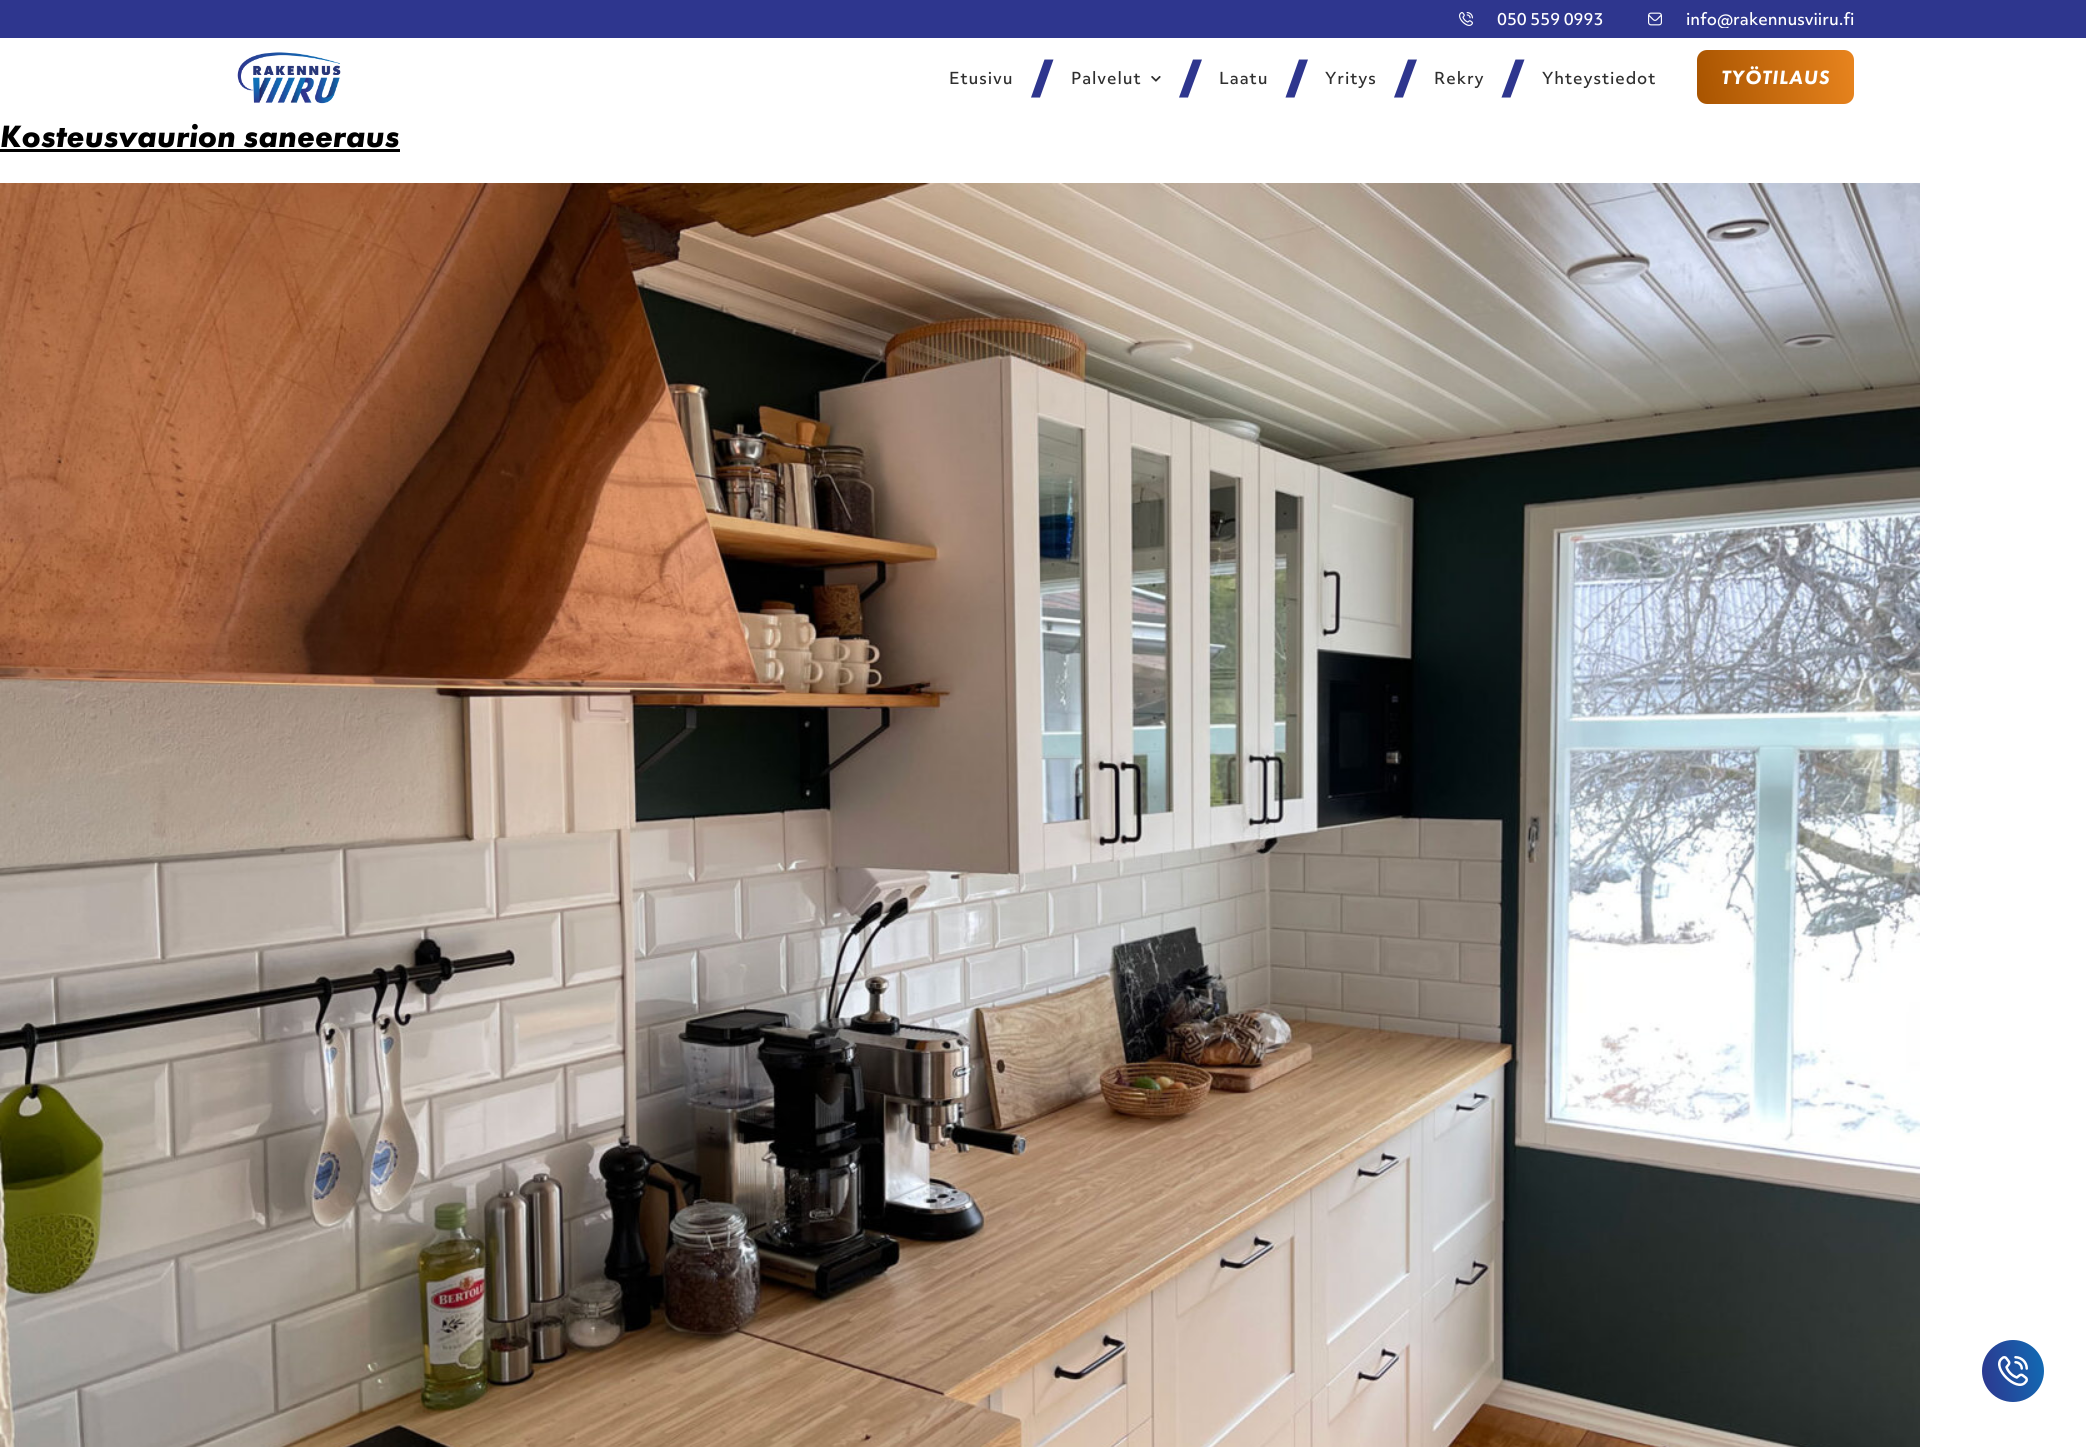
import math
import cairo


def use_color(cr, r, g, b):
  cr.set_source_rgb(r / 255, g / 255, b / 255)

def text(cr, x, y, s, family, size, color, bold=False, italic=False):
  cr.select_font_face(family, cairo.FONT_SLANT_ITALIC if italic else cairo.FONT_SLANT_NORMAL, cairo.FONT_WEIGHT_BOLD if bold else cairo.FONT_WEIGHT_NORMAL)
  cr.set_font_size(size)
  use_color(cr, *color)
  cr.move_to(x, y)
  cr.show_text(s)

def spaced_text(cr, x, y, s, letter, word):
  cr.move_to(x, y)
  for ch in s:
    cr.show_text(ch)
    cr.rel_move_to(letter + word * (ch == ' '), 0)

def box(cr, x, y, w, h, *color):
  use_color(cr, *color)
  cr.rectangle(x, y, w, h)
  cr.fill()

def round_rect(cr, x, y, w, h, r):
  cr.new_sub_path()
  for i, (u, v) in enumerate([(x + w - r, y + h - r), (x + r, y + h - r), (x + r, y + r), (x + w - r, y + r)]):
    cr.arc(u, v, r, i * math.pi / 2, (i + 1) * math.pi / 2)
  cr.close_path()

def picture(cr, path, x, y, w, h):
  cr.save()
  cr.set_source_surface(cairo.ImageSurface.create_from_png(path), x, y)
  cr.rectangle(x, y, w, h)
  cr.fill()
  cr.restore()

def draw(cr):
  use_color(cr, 255, 255, 255)
  cr.paint()
  box(cr, 0, 0, 2086, 38, 46, 54, 142)
  picture(cr, "img_01.png", 1459, 12, 14, 14)
  picture(cr, "img_02.png", 1648, 12, 14, 14)
  picture(cr, "img_03.png", 237, 52, 104, 52)
  cr.new_path()
  cr.move_to(1044.5, 59.5)
  cr.line_to(1053.5, 59.5)
  cr.line_to(1040, 97.5)
  cr.line_to(1031, 97.5)
  cr.close_path()
  cr.fill()
  picture(cr, "img_04.png", 1151, 76, 10, 6)
  cr.new_path()
  cr.move_to(1193, 59.5)
  cr.line_to(1202, 59.5)
  cr.line_to(1188, 97.5)
  cr.line_to(1179, 97.5)
  cr.close_path()
  cr.fill()
  cr.new_path()
  cr.move_to(1299, 59.5)
  cr.line_to(1308, 59.5)
  cr.line_to(1294.5, 97.5)
  cr.line_to(1285.5, 97.5)
  cr.close_path()
  cr.fill()
  cr.new_path()
  cr.move_to(1408, 59.5)
  cr.line_to(1417, 59.5)
  cr.line_to(1403, 97.5)
  cr.line_to(1394, 97.5)
  cr.close_path()
  cr.fill()
  cr.new_path()
  cr.move_to(1515.5, 59.5)
  cr.line_to(1524.5, 59.5)
  cr.line_to(1510.5, 97.5)
  cr.line_to(1501.5, 97.5)
  cr.close_path()
  cr.fill()
  gradient = cairo.LinearGradient(1695, 91, 1856, 63)
  gradient.add_color_stop_rgba(0, 0.659, 0.329, 0, 1)
  gradient.add_color_stop_rgba(1, 0.91, 0.518, 0.118, 1)
  cr.set_source(gradient)
  round_rect(cr, 1697, 50, 157, 54, 10)
  cr.fill()
  box(cr, 0, 149, 400, 3, 0, 0, 0)
  picture(cr, "img_05.png", 0, 183, 1920, 1264)
  gradient = cairo.LinearGradient(1978, 1377, 2048, 1365)
  gradient.add_color_stop_rgba(0, 0.18, 0.212, 0.557, 1)
  gradient.add_color_stop_rgba(1, 0.063, 0.424, 0.71, 1)
  cr.set_source(gradient)
  cr.arc(2013, 1371, 31, 0, 2 * math.pi)
  cr.fill()
  picture(cr, "img_06.png", 1998, 1356, 30, 30)
  text(cr, 1497, 25, "050 559 0993", "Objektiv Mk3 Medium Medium", 16, (255, 255, 255))
  cr.save()
  cr.rectangle(232, 10, 1622, 18)
  cr.clip()
  text(cr, 1686, 25, "info@rakennusviiru.fi", "Objektiv Mk3 Medium Medium", 16, (255, 255, 255))
  cr.restore()
  use_color(cr, 47, 47, 47)
  spaced_text(cr, 949, 84, "Etusivu", 0.9, 0)
  spaced_text(cr, 1071, 84, "Palvelut", 0.9, 0)
  spaced_text(cr, 1219, 84, "Laatu", 0.9, 0)
  spaced_text(cr, 1325, 84, "Yritys", 0.9, 0)
  spaced_text(cr, 1434, 84, "Rekry", 0.9, 0)
  spaced_text(cr, 1542, 84, "Yhteystiedot", 0.9, 0)
  cr.select_font_face("Futura PT Black", cairo.FONT_SLANT_ITALIC)
  cr.set_font_size(20)
  use_color(cr, 255, 255, 255)
  spaced_text(cr, 1721, 84, "TYÖTILAUS", 0.9, 0)
  text(cr, 0, 147, "Kosteusvaurion saneeraus", "Futura PT", 32, (0, 0, 0), bold=True, italic=True)


surface = cairo.ImageSurface(cairo.FORMAT_RGB24, 2086, 1447)
cr = cairo.Context(surface)
options = cairo.FontOptions()
options.set_hint_metrics(cairo.HINT_METRICS_OFF)
options.set_hint_style(cairo.HINT_STYLE_NONE)
cr.set_font_options(options)
cr.set_miter_limit(4)
draw(cr)
surface.write_to_png("out.png")
